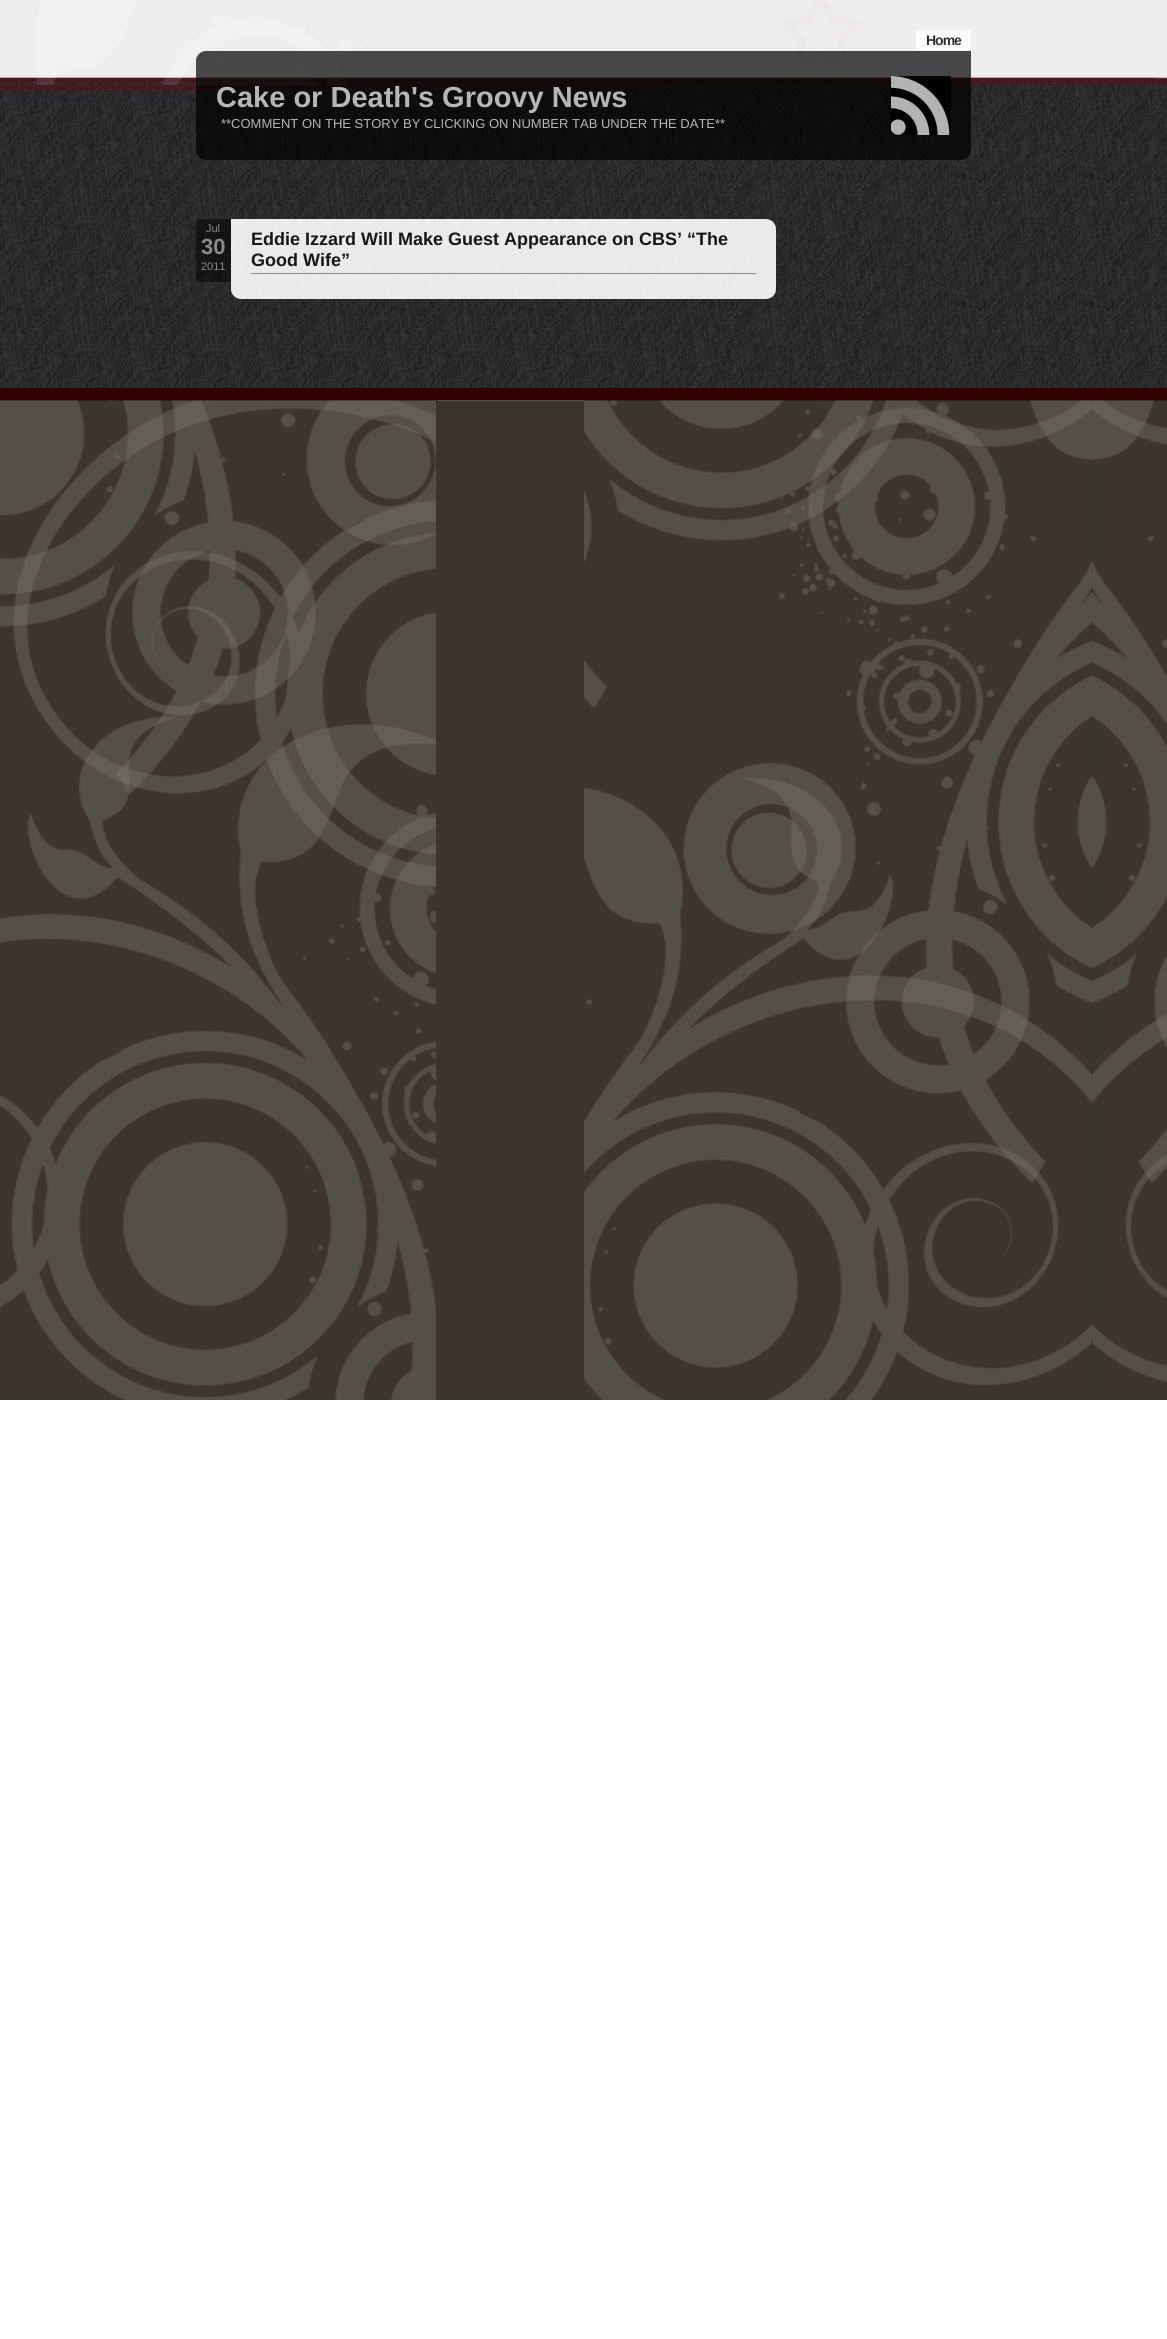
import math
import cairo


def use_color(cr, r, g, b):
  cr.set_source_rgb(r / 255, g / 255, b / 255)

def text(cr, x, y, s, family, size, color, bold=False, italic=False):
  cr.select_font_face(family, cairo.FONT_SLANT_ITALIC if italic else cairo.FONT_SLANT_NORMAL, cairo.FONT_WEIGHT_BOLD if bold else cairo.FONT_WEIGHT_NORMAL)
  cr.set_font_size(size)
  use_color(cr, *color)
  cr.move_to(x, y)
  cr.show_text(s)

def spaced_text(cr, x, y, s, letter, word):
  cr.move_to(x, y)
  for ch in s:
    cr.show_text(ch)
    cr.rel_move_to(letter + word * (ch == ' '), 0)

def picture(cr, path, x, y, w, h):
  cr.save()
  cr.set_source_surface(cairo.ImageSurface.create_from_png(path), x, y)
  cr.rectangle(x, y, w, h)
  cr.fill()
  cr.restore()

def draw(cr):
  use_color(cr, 255, 255, 255)
  cr.paint()
  picture(cr, "img_01.png", 0, 0, 1167, 1400)
  cr.save()
  cr.rectangle(196, 30, 775, 21)
  cr.clip()
  use_color(cr, 252, 252, 252)
  cr.new_path()
  cr.move_to(921, 29)
  cr.line_to(966, 29)
  cr.curve_to(969, 29, 971, 31, 971, 34)
  cr.line_to(971, 50)
  cr.line_to(916, 50)
  cr.line_to(916, 34)
  cr.curve_to(916, 31, 918, 29, 921, 29)
  cr.close_path()
  cr.fill()
  cr.restore()
  cr.set_source_rgba(0, 0, 0, 0.7)
  cr.new_path()
  cr.move_to(206, 51)
  cr.line_to(971, 51)
  cr.line_to(971, 150)
  cr.curve_to(971, 155.5, 966.5, 160, 961, 160)
  cr.line_to(206, 160)
  cr.curve_to(200.5, 160, 196, 155.5, 196, 150)
  cr.line_to(196, 61)
  cr.curve_to(196, 55.5, 200.5, 51, 206, 51)
  cr.close_path()
  cr.fill()
  cr.rectangle(891, 76, 60, 59)
  cr.fill()
  picture(cr, "img_02.png", 891, 76, 59, 59)
  cr.set_source_rgba(0, 0, 0, 0.5)
  cr.new_path()
  cr.move_to(201, 219)
  cr.line_to(231, 219)
  cr.line_to(231, 282)
  cr.line_to(201, 282)
  cr.curve_to(198, 282, 196, 280, 196, 277)
  cr.line_to(196, 224)
  cr.curve_to(196, 221, 198, 219, 201, 219)
  cr.close_path()
  cr.fill()
  cr.set_source_rgba(1, 1, 1, 0.9)
  cr.new_path()
  cr.move_to(231, 219)
  cr.line_to(766, 219)
  cr.curve_to(771.5, 219, 776, 223.5, 776, 229)
  cr.line_to(776, 289)
  cr.curve_to(776, 294.5, 771.5, 299, 766, 299)
  cr.line_to(241, 299)
  cr.curve_to(235.5, 299, 231, 294.5, 231, 289)
  cr.close_path()
  cr.fill()
  cr.set_source_rgba(0.502, 0.502, 0.502, 0.9)
  cr.rectangle(251, 273, 505, 1)
  cr.fill()
  cr.select_font_face("Liberation Sans", cairo.FONT_SLANT_NORMAL, cairo.FONT_WEIGHT_BOLD)
  cr.set_font_size(14)
  use_color(cr, 48, 48, 48)
  spaced_text(cr, 926, 45, "Home", -1, 0)
  text(cr, 216, 107, "Cake or Death's Groovy News", "Liberation Sans", 29, (183, 182, 182), bold=True)
  text(cr, 221, 128, "**COMMENT ON THE STORY BY CLICKING ON NUMBER TAB UNDER THE DATE**", "Liberation Sans", 13, (183, 182, 182))
  text(cr, 206, 232, "Jul", "Liberation Sans", 11, (138, 138, 138))
  text(cr, 201, 254, "30", "Liberation Sans", 22, (138, 138, 138), bold=True)
  text(cr, 201, 270, "2011", "Liberation Sans", 11, (138, 138, 138))
  text(cr, 251, 245, "Eddie Izzard Will Make Guest Appearance on CBS’ “The", "Liberation Sans", 18, (23, 23, 23), bold=True)
  text(cr, 251, 266, "Good Wife”", "Liberation Sans", 18, (23, 23, 23), bold=True)


surface = cairo.ImageSurface(cairo.FORMAT_RGB24, 1167, 2339)
cr = cairo.Context(surface)
options = cairo.FontOptions()
options.set_hint_metrics(cairo.HINT_METRICS_OFF)
options.set_hint_style(cairo.HINT_STYLE_NONE)
cr.set_font_options(options)
cr.set_miter_limit(4)
draw(cr)
surface.write_to_png("out.png")
